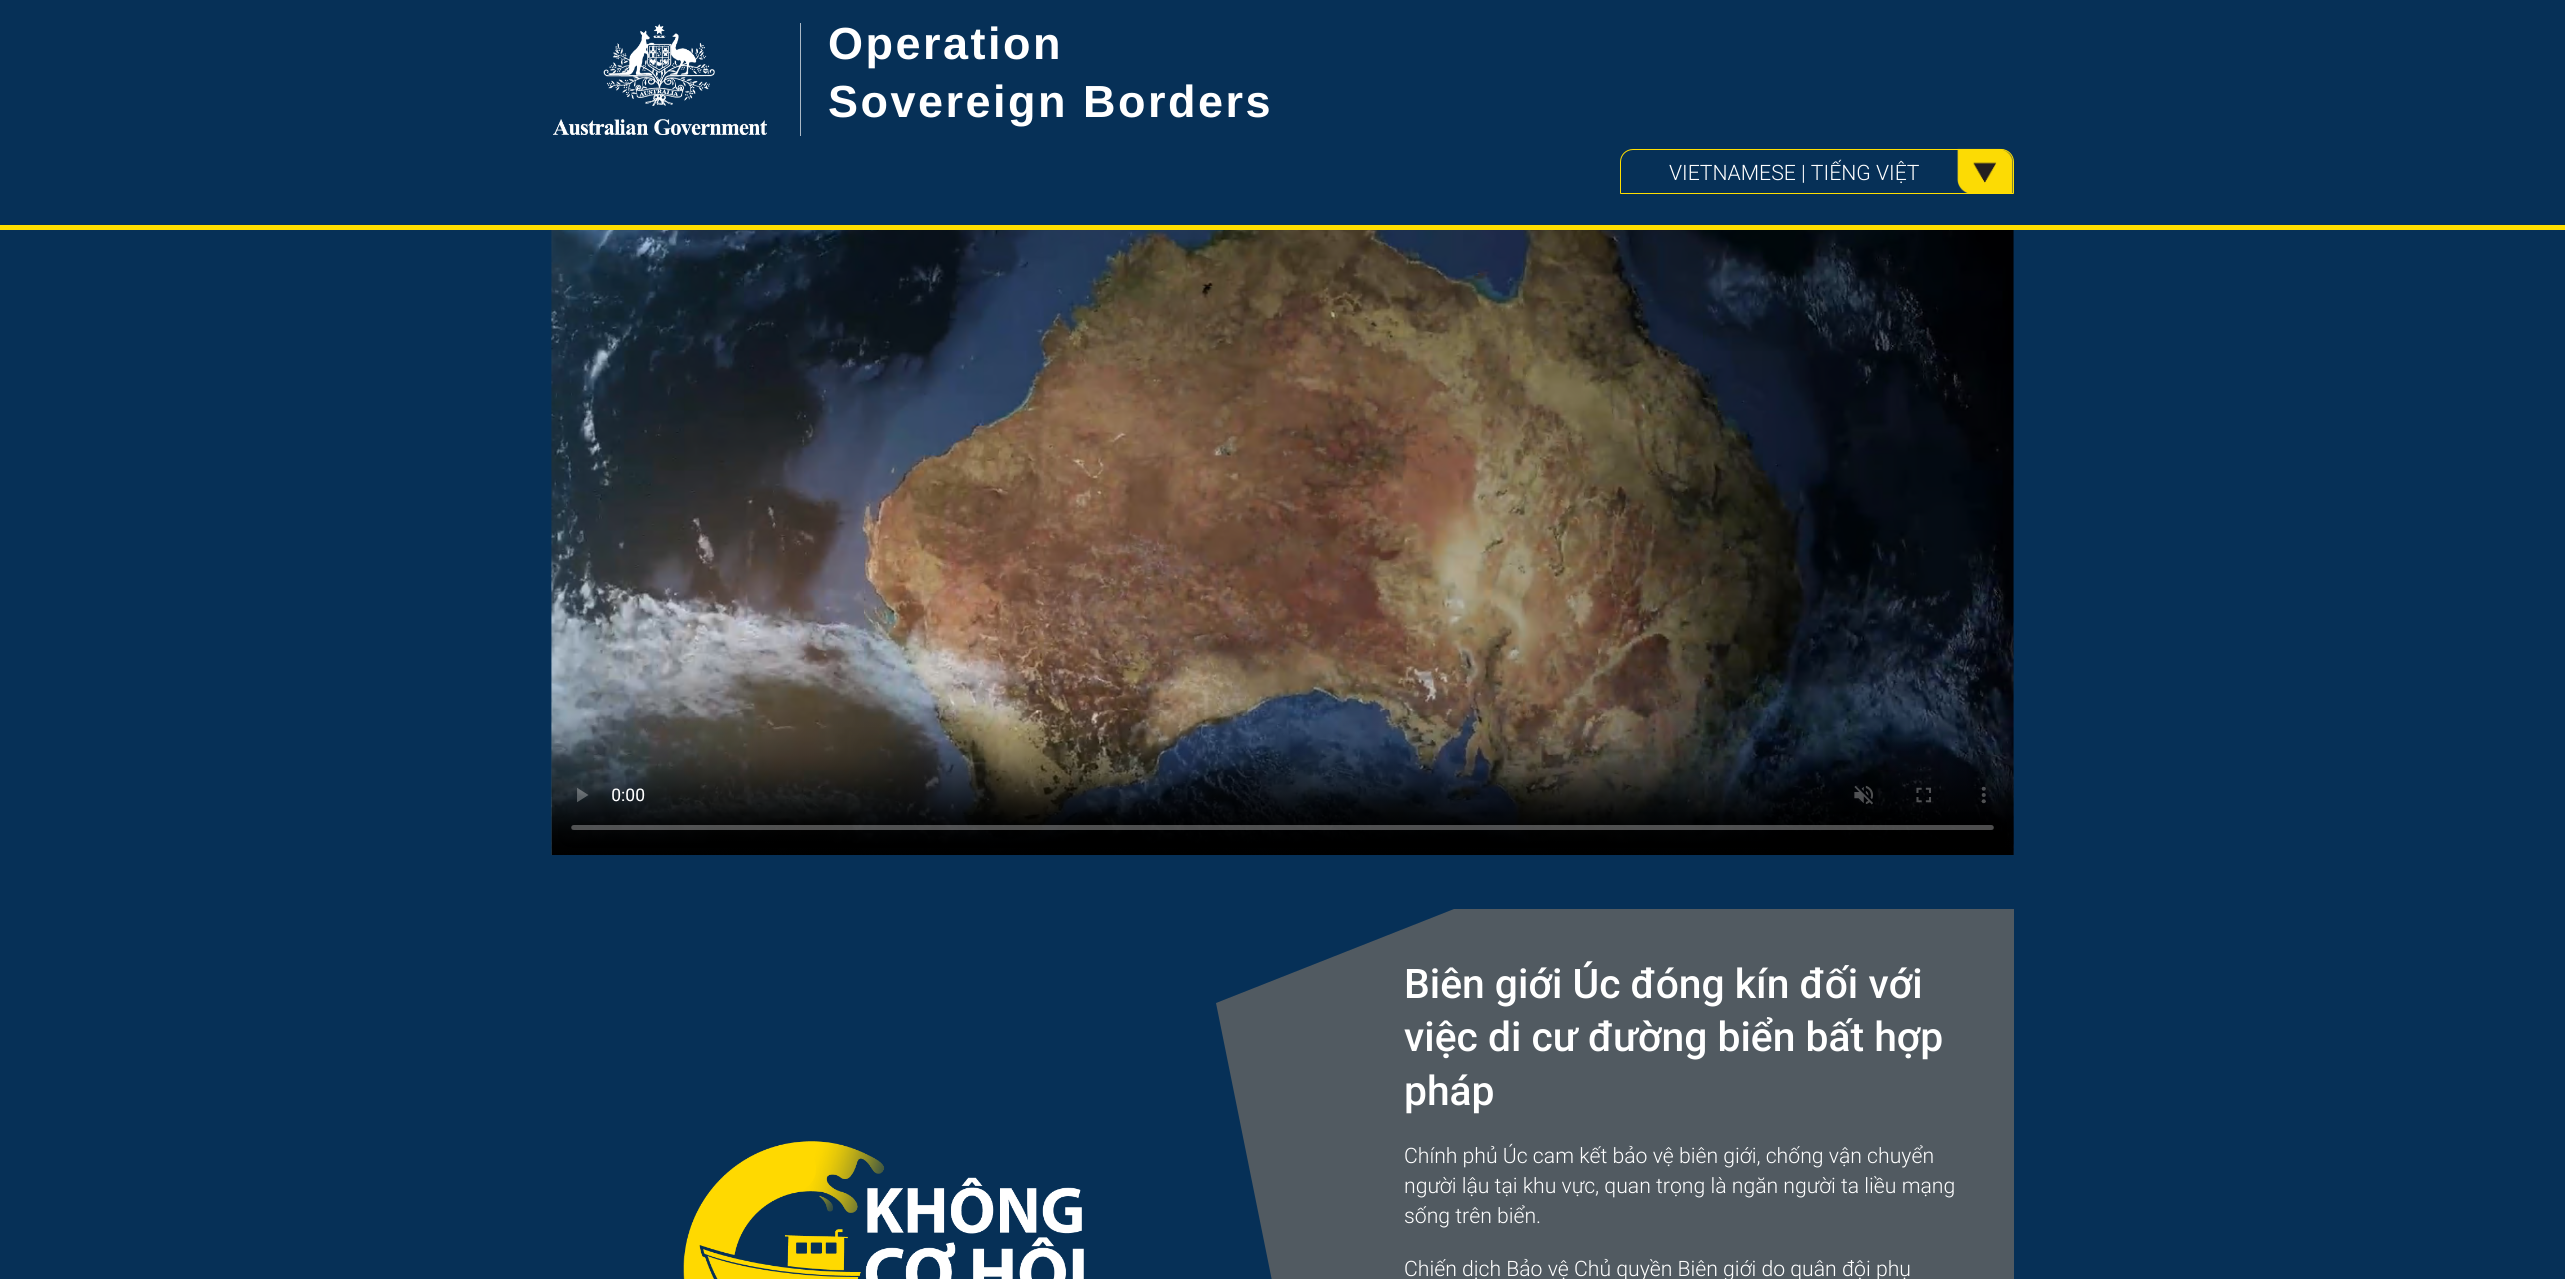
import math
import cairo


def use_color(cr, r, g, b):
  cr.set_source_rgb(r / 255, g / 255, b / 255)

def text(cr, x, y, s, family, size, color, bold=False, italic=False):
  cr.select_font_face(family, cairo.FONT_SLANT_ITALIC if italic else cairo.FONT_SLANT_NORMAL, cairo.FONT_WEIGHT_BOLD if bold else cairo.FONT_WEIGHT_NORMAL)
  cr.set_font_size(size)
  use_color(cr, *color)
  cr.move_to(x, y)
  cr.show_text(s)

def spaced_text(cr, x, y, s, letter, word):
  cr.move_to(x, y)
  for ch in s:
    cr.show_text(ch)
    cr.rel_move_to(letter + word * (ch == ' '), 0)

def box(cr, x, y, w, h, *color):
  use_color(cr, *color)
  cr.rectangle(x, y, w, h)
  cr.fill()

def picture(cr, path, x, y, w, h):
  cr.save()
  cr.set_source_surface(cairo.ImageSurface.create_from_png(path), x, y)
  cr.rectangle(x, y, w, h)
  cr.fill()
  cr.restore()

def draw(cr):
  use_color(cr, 6, 48, 87)
  cr.paint()
  box(cr, 0, 225, 2565, 5, 255, 222, 0)
  picture(cr, "img_01.png", 553, 23, 214, 112)
  box(cr, 800, 23, 1, 113, 171, 185, 198)
  picture(cr, "img_02.png", 1957, 148, 56, 45)
  cr.new_path()
  cr.move_to(1633, 149.5)
  cr.line_to(2001, 149.5)
  cr.curve_to(2008, 149.5, 2013.5, 155, 2013.5, 162)
  cr.line_to(2013.5, 193)
  cr.curve_to(2013.5, 193.5, 2013.5, 193.5, 2013, 193.5)
  cr.line_to(1621, 193.5)
  cr.curve_to(1620.5, 193.5, 1620.5, 193.5, 1620.5, 193)
  cr.line_to(1620.5, 162)
  cr.curve_to(1620.5, 155, 1626, 149.5, 1633, 149.5)
  cr.close_path()
  use_color(cr, 255, 222, 0)
  cr.set_line_width(1)
  cr.stroke()
  picture(cr, "img_03.png", 551, 230, 1463, 625)
  picture(cr, "img_04.png", 683, 1141, 401, 138)
  use_color(cr, 81, 90, 97)
  cr.new_path()
  cr.move_to(2014, 909)
  cr.line_to(2014, 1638)
  cr.line_to(1344, 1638)
  cr.line_to(1216, 1003)
  cr.line_to(1454, 909)
  cr.close_path()
  cr.fill()
  cr.select_font_face("Liberation Sans", cairo.FONT_SLANT_NORMAL, cairo.FONT_WEIGHT_BOLD)
  cr.set_font_size(45)
  use_color(cr, 255, 255, 255)
  spaced_text(cr, 828, 59, "Operation", 2.5, 0)
  spaced_text(cr, 828, 117, "Sovereign Borders", 2.5, 0)
  text(cr, 1669, 180, "VIETNAMESE | TIẾNG VIỆT", "Roboto Light", 21.2, (255, 255, 255))
  text(cr, 1404, 998, "Biên giới Úc đóng kín đối với", "Roboto Medium", 40.8, (255, 255, 255))
  text(cr, 1404, 1051, "việc di cư đường biển bất hợp", "Roboto Medium", 40.8, (255, 255, 255))
  text(cr, 1404, 1105, "pháp", "Roboto Medium", 40.8, (255, 255, 255))
  text(cr, 1404, 1163, "Chính phủ Úc cam kết bảo vệ biên giới, chống vận chuyển", "Roboto Light", 21.2, (255, 255, 255))
  text(cr, 1404, 1193, "người lậu tại khu vực, quan trọng là ngăn người ta liều mạng", "Roboto Light", 21.2, (255, 255, 255))
  text(cr, 1404, 1223, "sống trên biển.", "Roboto Light", 21.2, (255, 255, 255))
  text(cr, 1404, 1276, "Chiến dịch Bảo vệ Chủ quyền Biên giới do quân đội phụ", "Roboto Light", 21.2, (255, 255, 255))


surface = cairo.ImageSurface(cairo.FORMAT_RGB24, 2565, 1279)
cr = cairo.Context(surface)
options = cairo.FontOptions()
options.set_hint_metrics(cairo.HINT_METRICS_OFF)
options.set_hint_style(cairo.HINT_STYLE_NONE)
cr.set_font_options(options)
cr.set_miter_limit(4)
draw(cr)
surface.write_to_png("out.png")
